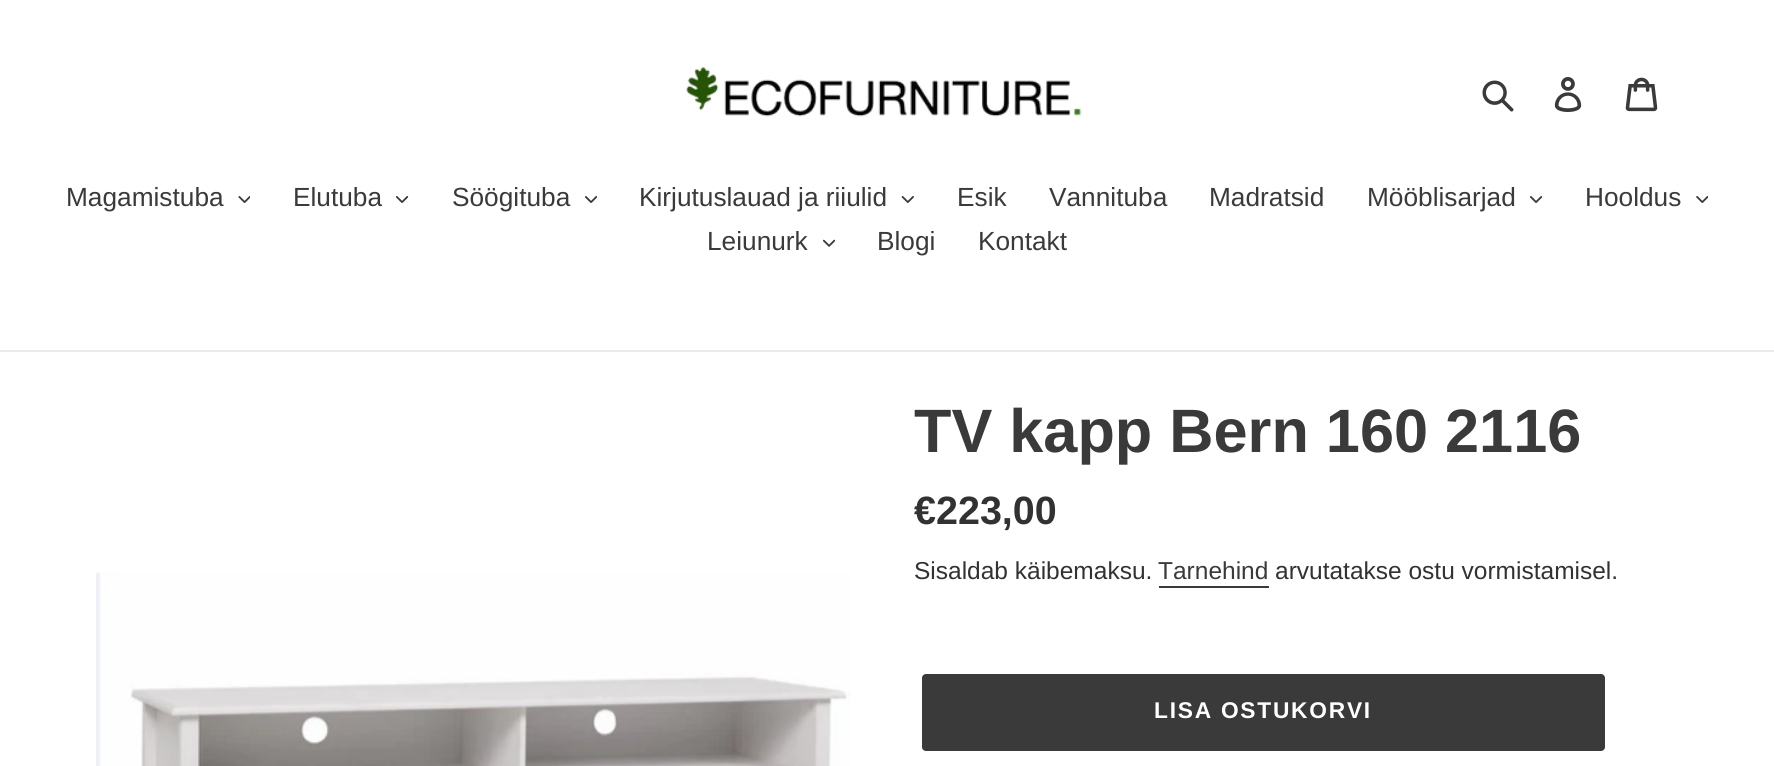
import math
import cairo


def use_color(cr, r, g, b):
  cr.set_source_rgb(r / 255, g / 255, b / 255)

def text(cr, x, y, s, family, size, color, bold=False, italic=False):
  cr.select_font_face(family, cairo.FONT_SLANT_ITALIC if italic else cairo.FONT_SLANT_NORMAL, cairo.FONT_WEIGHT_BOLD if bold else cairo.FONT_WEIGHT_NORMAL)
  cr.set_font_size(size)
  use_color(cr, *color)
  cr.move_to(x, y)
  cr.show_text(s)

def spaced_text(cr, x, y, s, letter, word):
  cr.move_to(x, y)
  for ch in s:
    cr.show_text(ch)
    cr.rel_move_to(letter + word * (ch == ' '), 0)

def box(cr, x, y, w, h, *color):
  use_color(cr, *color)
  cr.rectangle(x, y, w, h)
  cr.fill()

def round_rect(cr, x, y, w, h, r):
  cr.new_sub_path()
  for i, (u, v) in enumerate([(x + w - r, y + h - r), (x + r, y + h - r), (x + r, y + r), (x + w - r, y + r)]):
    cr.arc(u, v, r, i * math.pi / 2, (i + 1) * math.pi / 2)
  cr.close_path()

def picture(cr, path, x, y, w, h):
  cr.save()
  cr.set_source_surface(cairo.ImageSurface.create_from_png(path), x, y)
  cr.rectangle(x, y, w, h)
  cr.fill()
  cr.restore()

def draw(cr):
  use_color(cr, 255, 255, 255)
  cr.paint()
  picture(cr, "img_01.png", 686, 67, 395, 50)
  picture(cr, "img_02.png", 1482, 80, 32, 32)
  picture(cr, "img_03.png", 1554, 77, 28, 35)
  picture(cr, "img_04.png", 1625, 77, 33, 35)
  box(cr, 0, 350, 1774, 2, 235, 235, 235)
  picture(cr, "img_05.png", 238, 196, 12, 7)
  picture(cr, "img_06.png", 396, 196, 13, 7)
  picture(cr, "img_07.png", 585, 196, 12, 7)
  picture(cr, "img_08.png", 901, 196, 13, 7)
  picture(cr, "img_06.png", 1530, 196, 13, 7)
  picture(cr, "img_09.png", 1696, 196, 12, 7)
  picture(cr, "img_10.png", 823, 239, 12, 8)
  picture(cr, "img_11.png", 96, 572, 754, 194)
  box(cr, 1159, 586, 110, 2, 58, 58, 58)
  round_rect(cr, 922, 674, 683, 77, 4)
  cr.fill()
  text(cr, 66, 206, "Magamistuba", "Liberation Sans", 26.25, (58, 58, 58))
  text(cr, 293, 206, "Elutuba", "Liberation Sans", 26.25, (58, 58, 58))
  text(cr, 452, 206, "Söögituba", "Liberation Sans", 26.25, (58, 58, 58))
  text(cr, 639, 206, "Kirjutuslauad ja riiulid", "Liberation Sans", 26.25, (58, 58, 58))
  text(cr, 957, 206, "Esik", "Liberation Sans", 26.25, (58, 58, 58))
  text(cr, 1049, 206, "Vannituba", "Liberation Sans", 26.25, (58, 58, 58))
  text(cr, 1209, 206, "Madratsid", "Liberation Sans", 26.25, (58, 58, 58))
  text(cr, 1367, 206, "Mööblisarjad", "Liberation Sans", 26.25, (58, 58, 58))
  text(cr, 1585, 206, "Hooldus", "Liberation Sans", 26.25, (58, 58, 58))
  text(cr, 707, 250, "Leiunurk", "Liberation Sans", 26.25, (58, 58, 58))
  text(cr, 877, 250, "Blogi", "Liberation Sans", 26.25, (58, 58, 58))
  text(cr, 978, 250, "Kontakt", "Liberation Sans", 26.25, (58, 58, 58))
  text(cr, 914, 452, "TV kapp Bern 160 2116", "Liberation Sans", 61.25, (58, 58, 58), bold=True)
  text(cr, 914, 524, "€223,00", "Liberation Sans", 39.5, (51, 50, 50), bold=True)
  text(cr, 914, 579, "Sisaldab käibemaksu.", "Liberation Sans", 24.5, (51, 50, 50))
  text(cr, 1158, 579, "Tarnehind", "Liberation Sans", 24.5, (58, 58, 58))
  text(cr, 1275, 579, "arvutatakse ostu vormistamisel.", "Liberation Sans", 24.5, (51, 50, 50))
  cr.select_font_face("Liberation Sans", cairo.FONT_SLANT_NORMAL, cairo.FONT_WEIGHT_BOLD)
  cr.set_font_size(22.75)
  use_color(cr, 255, 255, 255)
  spaced_text(cr, 1154, 718, "LISA OSTUKORVI", 1.75, 0)


surface = cairo.ImageSurface(cairo.FORMAT_RGB24, 1774, 766)
cr = cairo.Context(surface)
options = cairo.FontOptions()
options.set_hint_metrics(cairo.HINT_METRICS_OFF)
options.set_hint_style(cairo.HINT_STYLE_NONE)
cr.set_font_options(options)
cr.set_miter_limit(4)
draw(cr)
surface.write_to_png("out.png")
